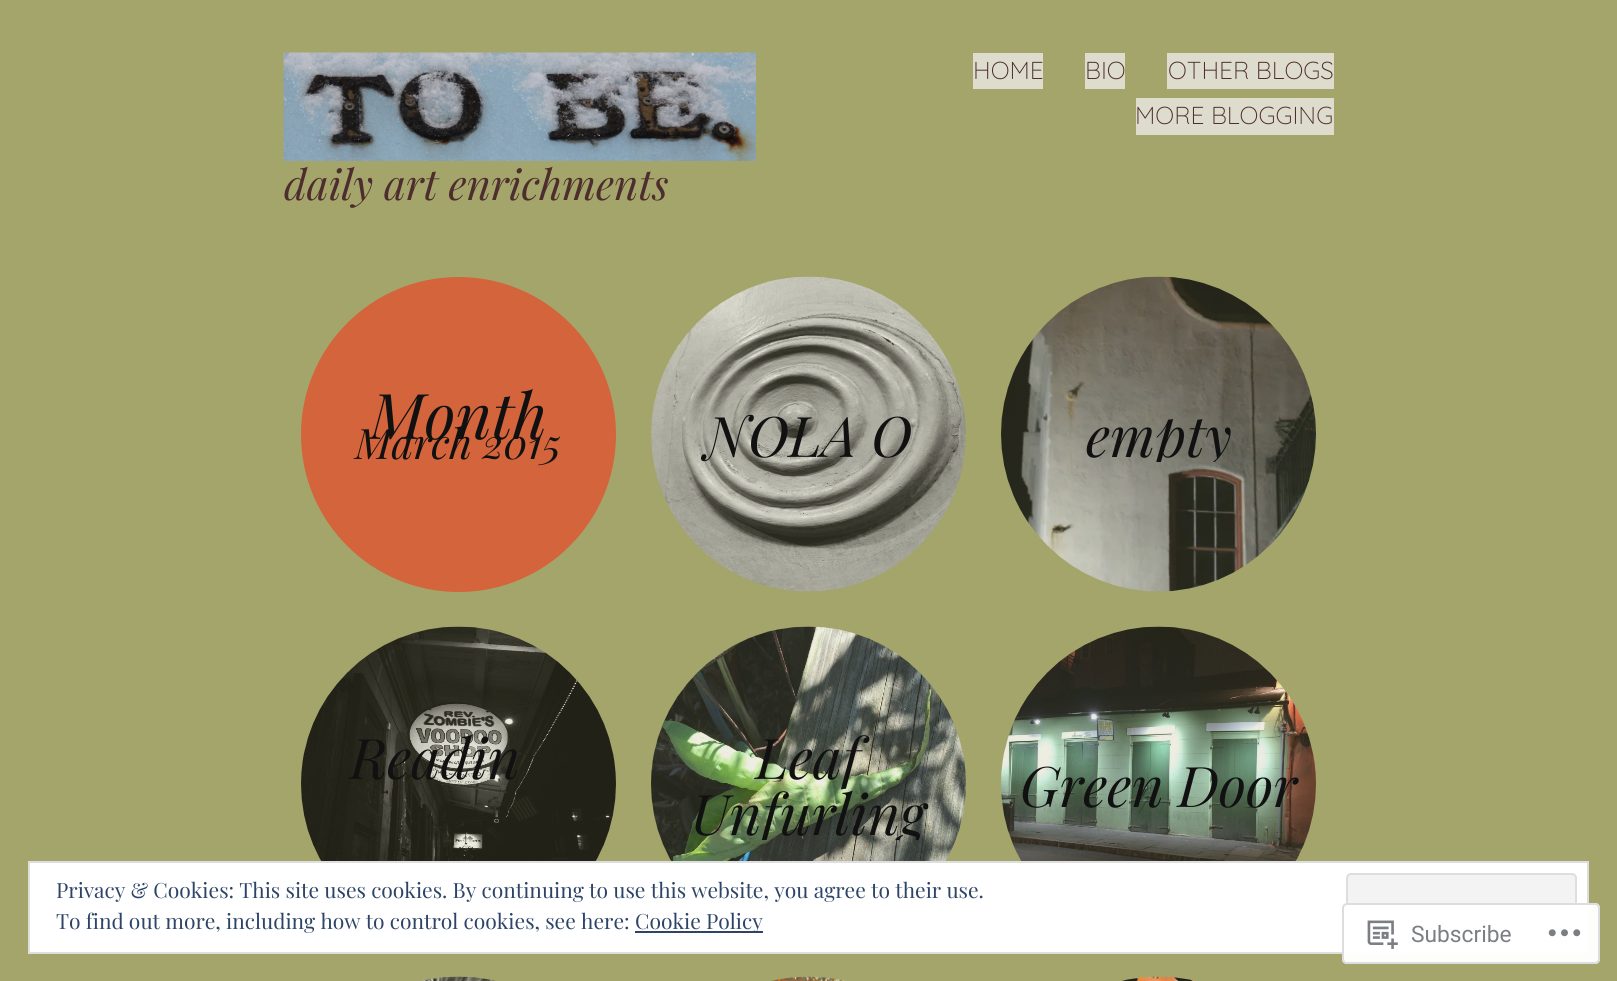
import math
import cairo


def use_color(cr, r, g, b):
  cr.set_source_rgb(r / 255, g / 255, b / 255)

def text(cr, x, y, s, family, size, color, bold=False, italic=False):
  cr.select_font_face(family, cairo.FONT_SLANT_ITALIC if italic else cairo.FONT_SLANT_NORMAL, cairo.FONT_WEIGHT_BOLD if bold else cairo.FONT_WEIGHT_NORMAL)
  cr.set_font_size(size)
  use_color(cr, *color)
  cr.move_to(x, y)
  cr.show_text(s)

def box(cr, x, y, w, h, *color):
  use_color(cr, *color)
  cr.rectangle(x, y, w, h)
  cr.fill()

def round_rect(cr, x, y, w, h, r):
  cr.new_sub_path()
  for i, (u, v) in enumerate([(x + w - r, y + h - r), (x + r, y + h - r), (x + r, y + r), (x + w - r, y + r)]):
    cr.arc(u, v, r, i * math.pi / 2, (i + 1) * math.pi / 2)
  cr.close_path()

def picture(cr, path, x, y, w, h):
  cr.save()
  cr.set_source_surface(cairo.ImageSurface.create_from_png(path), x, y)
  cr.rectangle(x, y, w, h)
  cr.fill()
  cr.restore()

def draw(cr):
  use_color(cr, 164, 165, 106)
  cr.paint()
  box(cr, 973, 53, 70, 36, 222, 221, 205)
  box(cr, 1085, 53, 40, 36, 222, 221, 205)
  box(cr, 1167, 53, 167, 36, 222, 221, 205)
  box(cr, 1136, 98, 198, 37, 222, 221, 205)
  picture(cr, "img_01.png", 283, 52, 473, 109)
  use_color(cr, 211, 100, 59)
  cr.arc(458.5, 434.5, 157.5, 0, 2 * math.pi)
  cr.fill()
  picture(cr, "img_02.png", 651, 276, 315, 316)
  picture(cr, "img_03.png", 1001, 276, 315, 316)
  picture(cr, "img_04.png", 301, 626, 315, 235)
  picture(cr, "img_05.png", 651, 626, 315, 235)
  picture(cr, "img_06.png", 1001, 626, 315, 235)
  picture(cr, "img_07.png", 422, 976, 74, 5)
  picture(cr, "img_08.png", 771, 976, 74, 5)
  picture(cr, "img_09.png", 1122, 976, 73, 5)
  use_color(cr, 255, 255, 255)
  cr.rectangle(29, 862, 1559, 91)
  cr.fill_preserve()
  use_color(cr, 222, 222, 222)
  cr.stroke()
  use_color(cr, 243, 243, 243)
  round_rect(cr, 1347, 874, 229, 67, 4)
  cr.fill_preserve()
  use_color(cr, 222, 222, 222)
  cr.stroke()
  box(cr, 635, 931, 128, 2, 46, 68, 103)
  cr.set_source_rgba(1, 1, 1, 0.98)
  round_rect(cr, 1342, 903, 258, 61, 5)
  cr.fill()
  round_rect(cr, 1343, 904, 256, 59, 4)
  cr.set_source_rgba(0.863, 0.863, 0.871, 0.98)
  cr.stroke()
  picture(cr, "img_10.png", 1367, 920, 31, 29)
  picture(cr, "img_11.png", 1548, 929, 33, 8)
  text(cr, 973, 79, "HOME", "Quicksand Light", 24.5, (77, 45, 45))
  text(cr, 1085, 79, "BIO", "Quicksand Light", 24.5, (77, 45, 45))
  text(cr, 1168, 79, "OTHER BLOGS", "Quicksand Light", 24.5, (77, 45, 45))
  text(cr, 1135, 124, "MORE BLOGGING", "Quicksand Light", 24.5, (77, 45, 45))
  text(cr, 284, 200, "daily art enrichments", "Playfair Display", 42, (77, 45, 45), italic=True)
  text(cr, 370, 439, "Month", "Playfair Display", 63, (17, 17, 17), italic=True)
  text(cr, 355, 459, "March 2015", "Playfair Display", 42, (17, 17, 17), italic=True)
  text(cr, 705, 457, "NOLA O", "Playfair Display", 56, (17, 17, 17), italic=True)
  cr.save()
  cr.rectangle(1001, 406, 315, 56)
  cr.clip()
  text(cr, 1086, 457, "empty", "Playfair Display", 56, (17, 17, 17), italic=True)
  cr.restore()
  text(cr, 350, 779, "Readin", "Playfair Display", 56, (17, 17, 17), italic=True)
  text(cr, 756, 779, "Leaf", "Playfair Display", 56, (17, 17, 17), italic=True)
  cr.save()
  cr.rectangle(651, 728, 315, 112)
  cr.clip()
  text(cr, 691, 835, "Unfurling", "Playfair Display", 56, (17, 17, 17), italic=True)
  cr.restore()
  text(cr, 1020, 807, "Green Door", "Playfair Display", 56, (17, 17, 17), italic=True)
  text(cr, 56, 898, "Privacy & Cookies: This site uses cookies. By continuing to use this website, you agree to their use.", "Playfair Display", 21, (46, 68, 103))
  text(cr, 56, 929, "To find out more, including how to control cookies, see here:", "Playfair Display", 21, (46, 68, 103))
  text(cr, 635, 929, "Cookie Policy", "Playfair Display", 21, (46, 68, 103))
  text(cr, 1411, 942, "Subscribe", "Roboto", 22.75, (123, 127, 132))


surface = cairo.ImageSurface(cairo.FORMAT_RGB24, 1617, 981)
cr = cairo.Context(surface)
options = cairo.FontOptions()
options.set_hint_metrics(cairo.HINT_METRICS_OFF)
options.set_hint_style(cairo.HINT_STYLE_NONE)
cr.set_font_options(options)
cr.set_miter_limit(4)
draw(cr)
surface.write_to_png("out.png")
